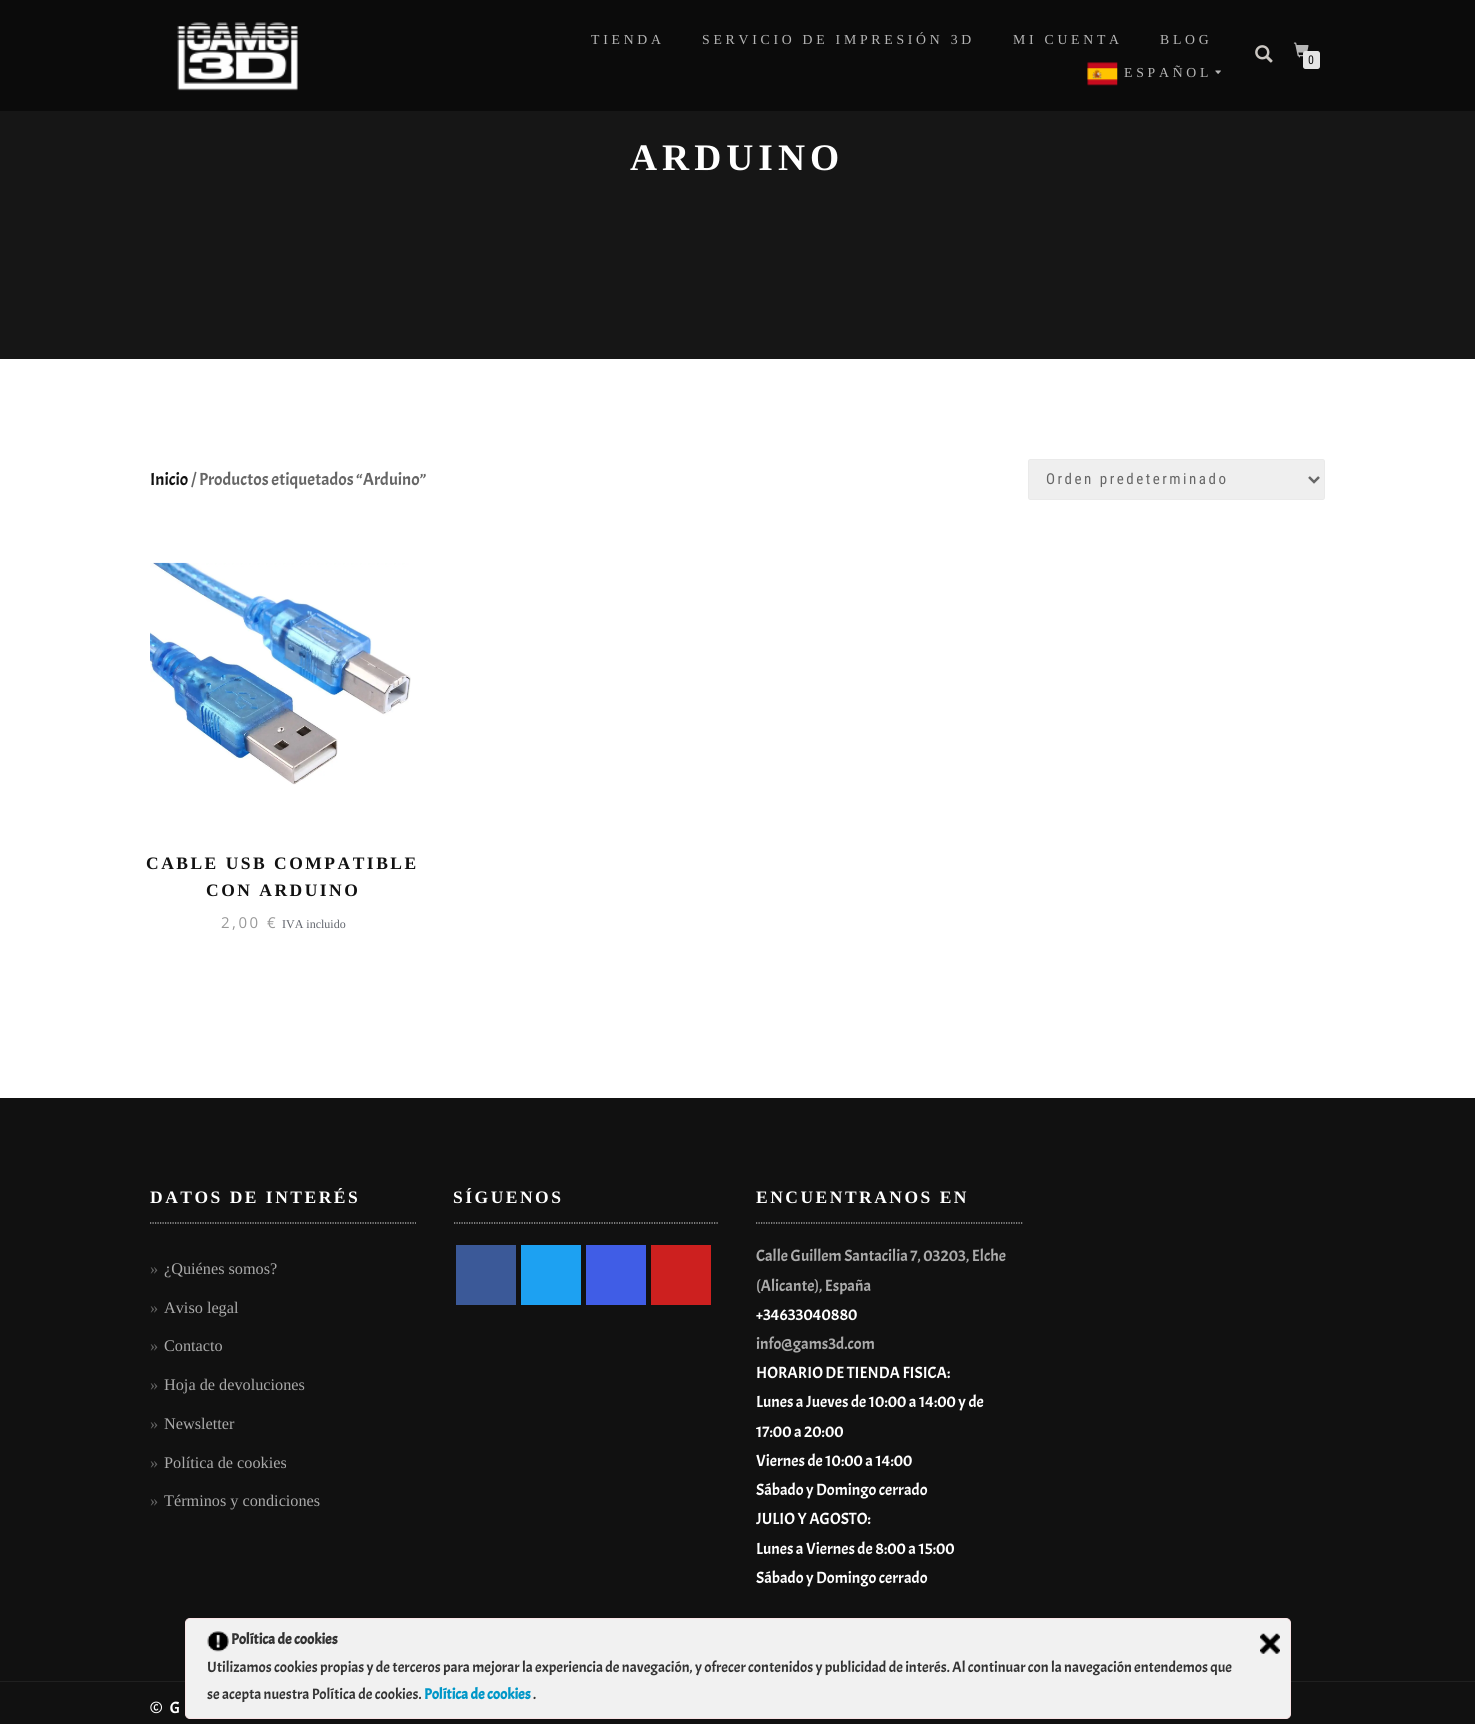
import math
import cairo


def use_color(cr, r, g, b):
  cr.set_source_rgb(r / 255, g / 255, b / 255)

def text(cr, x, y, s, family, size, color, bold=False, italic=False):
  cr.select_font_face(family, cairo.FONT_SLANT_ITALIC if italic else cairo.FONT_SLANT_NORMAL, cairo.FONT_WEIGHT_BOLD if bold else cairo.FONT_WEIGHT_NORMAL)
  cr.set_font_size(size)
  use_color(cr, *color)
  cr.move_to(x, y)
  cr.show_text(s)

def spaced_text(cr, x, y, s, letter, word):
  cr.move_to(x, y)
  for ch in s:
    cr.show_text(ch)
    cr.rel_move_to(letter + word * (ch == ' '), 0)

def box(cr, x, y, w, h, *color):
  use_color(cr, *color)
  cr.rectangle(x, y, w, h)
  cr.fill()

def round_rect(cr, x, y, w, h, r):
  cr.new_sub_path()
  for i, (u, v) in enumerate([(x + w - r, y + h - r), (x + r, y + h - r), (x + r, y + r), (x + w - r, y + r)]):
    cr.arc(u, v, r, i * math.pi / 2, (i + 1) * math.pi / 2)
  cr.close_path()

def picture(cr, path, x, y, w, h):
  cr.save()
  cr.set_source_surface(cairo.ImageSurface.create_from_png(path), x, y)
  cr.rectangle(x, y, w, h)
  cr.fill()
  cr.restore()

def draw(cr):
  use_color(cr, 255, 255, 255)
  cr.paint()
  box(cr, 0, 0, 1475, 111, 11, 11, 11)
  picture(cr, "img_01.png", 177, 22, 121, 69)
  picture(cr, "img_02.png", 1087, 62, 31, 24)
  picture(cr, "img_03.png", 1215, 70, 6, 4)
  picture(cr, "img_04.png", 1255, 45, 18, 18)
  picture(cr, "img_05.png", 1293, 42, 16, 16)
  use_color(cr, 229, 229, 229)
  round_rect(cr, 1303, 51, 17, 18, 2.5)
  cr.fill()
  box(cr, 0, 111, 1475, 248, 22, 22, 22)
  use_color(cr, 239, 239, 239)
  round_rect(cr, 1028.5, 459.5, 296, 40, 2)
  cr.fill_preserve()
  use_color(cr, 234, 234, 234)
  cr.set_line_width(1)
  cr.stroke()
  cr.new_path()
  cr.move_to(1309, 477)
  cr.line_to(1314, 482)
  cr.line_to(1319, 477)
  use_color(cr, 102, 102, 102)
  cr.set_line_width(2.5)
  cr.stroke()
  picture(cr, "img_06.png", 150, 562, 261, 223)
  box(cr, 0, 1098, 1475, 583, 17, 17, 17)
  cr.new_path()
  cr.move_to(150, 1223)
  cr.line_to(416, 1223)
  use_color(cr, 194, 194, 194)
  cr.set_line_width(1.2)
  cr.set_dash([1.25, 1.25])
  cr.stroke()
  cr.new_path()
  cr.move_to(454, 1223)
  cr.line_to(719, 1223)
  cr.stroke()
  box(cr, 456, 1245, 60, 60, 59, 89, 152)
  box(cr, 521, 1245, 60, 60, 29, 161, 242)
  box(cr, 586, 1245, 60, 60, 64, 93, 230)
  box(cr, 651, 1245, 60, 60, 205, 32, 31)
  cr.new_path()
  cr.move_to(756, 1223)
  cr.line_to(1022.5, 1223)
  use_color(cr, 194, 194, 194)
  cr.stroke()
  box(cr, 0, 1682, 1475, 42, 17, 17, 17)
  box(cr, 0, 1681, 1475, 1, 32, 32, 32)
  use_color(cr, 241, 241, 241)
  round_rect(cr, 185.5, 1618.5, 1105, 100, 4.5)
  cr.fill_preserve()
  use_color(cr, 250, 227, 229)
  cr.set_line_width(1)
  cr.set_dash([])
  cr.stroke()
  picture(cr, "img_07.png", 207, 1631, 22, 21)
  picture(cr, "img_08.png", 1260, 1633, 20, 21)
  cr.select_font_face("Liberation Serif")
  cr.set_font_size(13.75)
  use_color(cr, 182, 182, 182)
  spaced_text(cr, 591, 44, "TIENDA", 3.75, 0)
  spaced_text(cr, 702, 44, "SERVICIO DE IMPRESIÓN 3D", 3.75, 0)
  spaced_text(cr, 1013, 44, "MI CUENTA", 3.75, 0)
  spaced_text(cr, 1160, 44, "BLOG", 3.75, 0)
  spaced_text(cr, 1124, 77, "ESPAÑOL", 3.75, 0)
  text(cr, 1308, 64, "0", "Roboto Condensed", 12, (17, 17, 17))
  cr.select_font_face("Liberation Serif", cairo.FONT_SLANT_NORMAL, cairo.FONT_WEIGHT_BOLD)
  cr.set_font_size(37.5)
  use_color(cr, 255, 255, 255)
  spaced_text(cr, 630, 170, "ARDUINO", 5, 0)
  text(cr, 150, 485, "Inicio", "Acme", 17.5, (17, 17, 17))
  text(cr, 191, 485, "/ Productos etiquetados “Arduino”", "Acme", 17.5, (102, 102, 102))
  cr.select_font_face("Roboto Condensed")
  cr.set_font_size(15)
  spaced_text(cr, 1046, 484, "Orden predeterminado", 2.5, 0)
  cr.select_font_face("Liberation Serif", cairo.FONT_SLANT_NORMAL, cairo.FONT_WEIGHT_BOLD)
  cr.set_font_size(17.5)
  use_color(cr, 17, 17, 17)
  spaced_text(cr, 146, 869, "CABLE USB COMPATIBLE", 2.5, 0)
  spaced_text(cr, 206, 896, "CON ARDUINO", 2.5, 0)
  cr.select_font_face("Open Sans")
  cr.set_font_size(15)
  use_color(cr, 153, 153, 153)
  spaced_text(cr, 221, 928, "2,00 €", 2.5, 0)
  text(cr, 282, 928, "IVA incluido", "Liberation Serif", 12, (96, 100, 108))
  cr.select_font_face("Liberation Serif", cairo.FONT_SLANT_NORMAL, cairo.FONT_WEIGHT_BOLD)
  cr.set_font_size(17.5)
  use_color(cr, 255, 255, 255)
  spaced_text(cr, 150, 1203, "DATOS DE INTERÉS", 2.5, 0)
  text(cr, 150, 1274, "»", "Liberation Serif", 16.25, (102, 102, 102))
  text(cr, 164, 1274, "¿Quiénes somos?", "Liberation Serif", 16.25, (170, 170, 170))
  text(cr, 150, 1313, "»", "Liberation Serif", 16.25, (102, 102, 102))
  text(cr, 164, 1313, "Aviso legal", "Liberation Serif", 16.25, (170, 170, 170))
  text(cr, 150, 1351, "»", "Liberation Serif", 16.25, (102, 102, 102))
  text(cr, 164, 1351, "Contacto", "Liberation Serif", 16.25, (170, 170, 170))
  text(cr, 150, 1390, "»", "Liberation Serif", 16.25, (102, 102, 102))
  text(cr, 164, 1390, "Hoja de devoluciones", "Liberation Serif", 16.25, (170, 170, 170))
  text(cr, 150, 1429, "»", "Liberation Serif", 16.25, (102, 102, 102))
  text(cr, 164, 1429, "Newsletter", "Liberation Serif", 16.25, (170, 170, 170))
  text(cr, 150, 1468, "»", "Liberation Serif", 16.25, (102, 102, 102))
  text(cr, 164, 1468, "Política de cookies", "Liberation Serif", 16.25, (170, 170, 170))
  text(cr, 150, 1506, "»", "Liberation Serif", 16.25, (102, 102, 102))
  text(cr, 164, 1506, "Términos y condiciones", "Liberation Serif", 16.25, (170, 170, 170))
  cr.select_font_face("Liberation Serif", cairo.FONT_SLANT_NORMAL, cairo.FONT_WEIGHT_BOLD)
  cr.set_font_size(17.5)
  use_color(cr, 255, 255, 255)
  spaced_text(cr, 453, 1203, "SÍGUENOS", 2.5, 0)
  spaced_text(cr, 756, 1203, "ENCUENTRANOS EN", 2.5, 0)
  text(cr, 756, 1261, "Calle Guillem Santacilia 7, 03203, Elche", "Acme", 16.25, (170, 170, 170))
  text(cr, 756, 1291, "(Alicante), España", "Acme", 16.25, (170, 170, 170))
  text(cr, 756, 1320, "+34633040880", "Acme", 16.25, (255, 255, 255))
  text(cr, 756, 1349, "info@gams3d.com", "Acme", 16.25, (170, 170, 170))
  text(cr, 756, 1378, "HORARIO DE TIENDA FISICA:", "Acme", 16.25, (255, 255, 255))
  text(cr, 756, 1407, "Lunes a Jueves de 10:00 a 14:00 y de", "Acme", 16.25, (255, 255, 255))
  text(cr, 756, 1437, "17:00 a 20:00", "Acme", 16.25, (255, 255, 255))
  text(cr, 756, 1466, "Viernes de 10:00 a 14:00", "Acme", 16.25, (255, 255, 255))
  text(cr, 756, 1495, "Sábado y Domingo cerrado", "Acme", 16.25, (255, 255, 255))
  text(cr, 756, 1524, "JULIO Y AGOSTO:", "Acme", 16.25, (255, 255, 255))
  text(cr, 756, 1554, "Lunes a Viernes de 8:00 a 15:00", "Acme", 16.25, (255, 255, 255))
  text(cr, 756, 1583, "Sábado y Domingo cerrado", "Acme", 16.25, (255, 255, 255))
  spaced_text(cr, 150, 1713, "© G", 2.5, 0)
  text(cr, 231, 1644, "Política de cookies", "Acme", 15, (51, 51, 51), bold=True)
  text(cr, 207, 1672, "Utilizamos cookies propias y de terceros para mejorar la experiencia de navegación, y ofrecer contenidos y publicidad de interés. Al continuar con la navegación entendemos que", "Acme", 15, (51, 51, 51))
  text(cr, 207, 1699, "se acepta nuestra Política de cookies.", "Acme", 15, (51, 51, 51))
  text(cr, 424, 1699, "Política de cookies", "Acme", 15, (0, 151, 200), bold=True)
  text(cr, 533, 1699, ".", "Acme", 15, (51, 51, 51))


surface = cairo.ImageSurface(cairo.FORMAT_RGB24, 1475, 1724)
cr = cairo.Context(surface)
options = cairo.FontOptions()
options.set_hint_metrics(cairo.HINT_METRICS_OFF)
options.set_hint_style(cairo.HINT_STYLE_NONE)
cr.set_font_options(options)
cr.set_miter_limit(4)
draw(cr)
surface.write_to_png("out.png")
